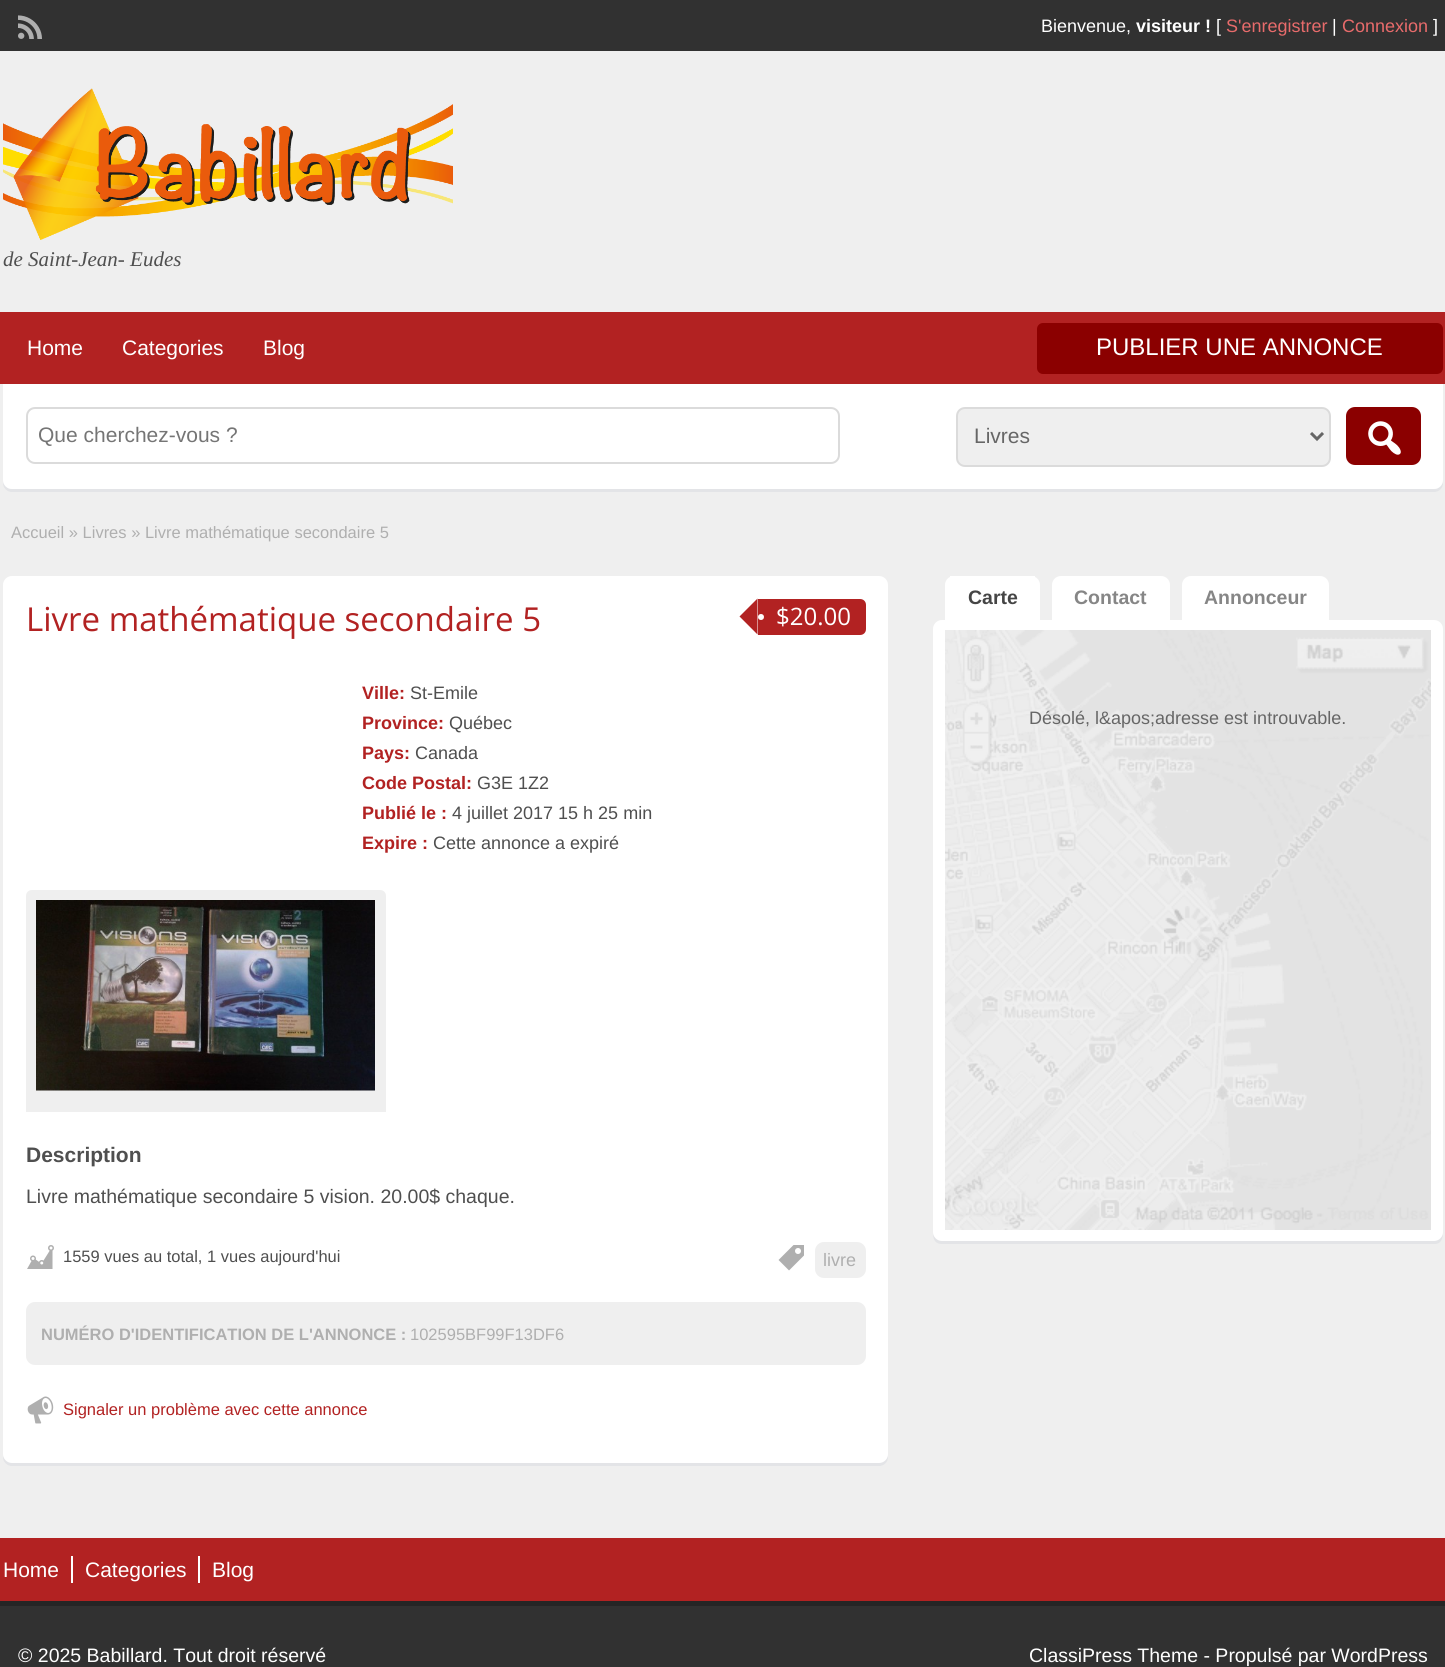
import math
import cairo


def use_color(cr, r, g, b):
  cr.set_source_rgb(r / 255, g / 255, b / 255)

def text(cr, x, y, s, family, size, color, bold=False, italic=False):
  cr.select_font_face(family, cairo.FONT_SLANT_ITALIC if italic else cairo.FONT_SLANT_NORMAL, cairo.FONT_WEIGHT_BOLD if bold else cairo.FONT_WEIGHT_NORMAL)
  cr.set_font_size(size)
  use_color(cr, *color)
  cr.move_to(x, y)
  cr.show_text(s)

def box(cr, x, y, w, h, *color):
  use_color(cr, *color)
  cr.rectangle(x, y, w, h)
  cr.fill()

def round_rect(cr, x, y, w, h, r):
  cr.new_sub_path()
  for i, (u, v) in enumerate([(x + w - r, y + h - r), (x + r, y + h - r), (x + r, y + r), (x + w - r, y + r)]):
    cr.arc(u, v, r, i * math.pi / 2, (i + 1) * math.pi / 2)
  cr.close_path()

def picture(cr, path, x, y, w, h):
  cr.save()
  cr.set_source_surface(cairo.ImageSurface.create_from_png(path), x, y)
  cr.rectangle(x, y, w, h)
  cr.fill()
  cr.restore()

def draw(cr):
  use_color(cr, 239, 239, 239)
  cr.paint()
  box(cr, 0, 0, 1445, 51, 49, 49, 49)
  picture(cr, "img_01.png", 18, 15, 24, 24)
  picture(cr, "img_02.png", 3, 88, 450, 152)
  box(cr, 0, 312, 1445, 72, 178, 34, 34)
  use_color(cr, 139, 0, 0)
  round_rect(cr, 1037, 323, 406, 51, 6)
  cr.fill()
  use_color(cr, 227, 228, 231)
  cr.new_path()
  cr.move_to(3, 480)
  cr.line_to(3, 483)
  cr.curve_to(3, 488, 7, 492, 12, 492)
  cr.line_to(1434, 492)
  cr.curve_to(1439, 492, 1443, 488, 1443, 483)
  cr.line_to(1443, 480)
  cr.curve_to(1443, 485, 1439, 489, 1434, 489)
  cr.line_to(12, 489)
  cr.curve_to(7, 489, 3, 485, 3, 480)
  cr.close_path()
  cr.fill()
  use_color(cr, 255, 255, 255)
  cr.new_path()
  cr.move_to(3, 384)
  cr.line_to(1443, 384)
  cr.line_to(1443, 480)
  cr.curve_to(1443, 485, 1439, 489, 1434, 489)
  cr.line_to(12, 489)
  cr.curve_to(7, 489, 3, 485, 3, 480)
  cr.close_path()
  cr.fill()
  round_rect(cr, 27, 408, 812, 55, 8)
  use_color(cr, 219, 219, 219)
  cr.stroke()
  use_color(cr, 239, 239, 239)
  round_rect(cr, 957, 408, 373, 58, 8)
  cr.fill_preserve()
  use_color(cr, 219, 219, 219)
  cr.stroke()
  cr.new_path()
  cr.move_to(1311, 433)
  cr.line_to(1317, 439)
  cr.line_to(1323, 433)
  use_color(cr, 102, 102, 102)
  cr.set_line_width(3)
  cr.stroke()
  use_color(cr, 139, 0, 0)
  round_rect(cr, 1346, 407, 75, 58, 9)
  cr.fill()
  picture(cr, "img_03.png", 1368, 421, 33, 34)
  use_color(cr, 227, 228, 231)
  cr.new_path()
  cr.move_to(3, 1454)
  cr.line_to(3, 1457)
  cr.curve_to(3, 1462, 7, 1466, 12, 1466)
  cr.line_to(879, 1466)
  cr.curve_to(884, 1466, 888, 1462, 888, 1457)
  cr.line_to(888, 1454)
  cr.curve_to(888, 1458, 884, 1462, 879, 1462)
  cr.line_to(12, 1462)
  cr.curve_to(7, 1462, 3, 1458, 3, 1454)
  cr.close_path()
  cr.fill()
  use_color(cr, 255, 255, 255)
  round_rect(cr, 3, 576, 885, 887, 9)
  cr.fill()
  use_color(cr, 178, 34, 34)
  cr.new_path()
  cr.move_to(758, 599)
  cr.line_to(860, 599)
  cr.curve_to(863.5, 599, 866, 601.5, 866, 605)
  cr.line_to(866, 629)
  cr.curve_to(866, 632.5, 863.5, 635, 860, 635)
  cr.line_to(758, 635)
  cr.close_path()
  cr.fill()
  cr.new_path()
  cr.move_to(757.5, 598.5)
  cr.line_to(757.5, 634.5)
  cr.line_to(739.5, 616.5)
  cr.close_path()
  cr.fill()
  use_color(cr, 255, 255, 255)
  cr.arc(761, 617, 3, 0, 2 * math.pi)
  cr.fill()
  use_color(cr, 239, 239, 239)
  cr.new_path()
  cr.move_to(32, 890)
  cr.line_to(380, 890)
  cr.curve_to(383.5, 890, 386, 892.5, 386, 896)
  cr.line_to(386, 1112)
  cr.line_to(26, 1112)
  cr.line_to(26, 896)
  cr.curve_to(26, 892.5, 28.5, 890, 32, 890)
  cr.close_path()
  cr.fill()
  picture(cr, "img_04.png", 36, 900, 339, 191)
  picture(cr, "img_05.png", 27, 1245, 27, 24)
  picture(cr, "img_06.png", 778, 1245, 26, 26)
  round_rect(cr, 815, 1242, 51, 36, 9)
  cr.fill()
  round_rect(cr, 26, 1302, 840, 63, 9)
  cr.fill()
  picture(cr, "img_07.png", 27, 1396, 27, 28)
  use_color(cr, 227, 228, 231)
  cr.new_path()
  cr.move_to(933, 1232)
  cr.curve_to(933, 1238, 934, 1244, 942, 1244)
  cr.line_to(1436, 1244)
  cr.curve_to(1442, 1243, 1443, 1237, 1443, 1232)
  cr.curve_to(1443, 1236, 1439, 1240, 1434, 1240)
  cr.line_to(942, 1240)
  cr.curve_to(937, 1240, 933, 1236, 933, 1232)
  cr.close_path()
  cr.fill()
  use_color(cr, 255, 255, 255)
  round_rect(cr, 933, 620, 510, 621, 9)
  cr.fill()
  cr.new_path()
  cr.move_to(954, 576)
  cr.line_to(1031, 576)
  cr.curve_to(1036, 576, 1040, 580, 1040, 585)
  cr.line_to(1040, 621)
  cr.line_to(945, 621)
  cr.line_to(945, 585)
  cr.curve_to(945, 580, 949, 576, 954, 576)
  cr.close_path()
  cr.fill()
  box(cr, 950, 576, 85, 1, 255, 255, 255)
  cr.new_path()
  cr.move_to(1061, 576)
  cr.line_to(1161, 576)
  cr.curve_to(1166, 576, 1170, 580, 1170, 585)
  cr.line_to(1170, 621)
  cr.line_to(1052, 621)
  cr.line_to(1052, 585)
  cr.curve_to(1052, 580, 1056, 576, 1061, 576)
  cr.close_path()
  cr.fill()
  cr.new_path()
  cr.move_to(1191, 576)
  cr.line_to(1320, 576)
  cr.curve_to(1325, 576, 1329, 580, 1329, 585)
  cr.line_to(1329, 621)
  cr.line_to(1182, 621)
  cr.line_to(1182, 585)
  cr.curve_to(1182, 580, 1186, 576, 1191, 576)
  cr.close_path()
  cr.fill()
  picture(cr, "img_08.png", 1164, 906, 48, 48)
  picture(cr, "img_09.png", 945, 630, 486, 600)
  box(cr, 0, 1606, 1445, 61, 49, 49, 49)
  box(cr, 0, 1538, 1445, 63, 178, 34, 34)
  box(cr, 71, 1556, 2, 27, 255, 255, 255)
  box(cr, 198, 1556, 2, 27, 255, 255, 255)
  box(cr, 0, 1601, 1445, 5, 37, 37, 37)
  text(cr, 1041, 32, "Bienvenue,", "Liberation Sans", 18, (255, 255, 255))
  text(cr, 1136, 32, "visiteur !", "Liberation Sans", 18, (255, 255, 255), bold=True)
  text(cr, 1216, 32, "[", "Liberation Sans", 18, (255, 255, 255))
  text(cr, 1226, 32, "S'enregistrer", "Liberation Sans", 18, (232, 107, 107))
  text(cr, 1332, 32, "|", "Liberation Sans", 18, (255, 255, 255))
  text(cr, 1342, 32, "Connexion", "Liberation Sans", 18, (232, 107, 107))
  text(cr, 1433, 32, "]", "Liberation Sans", 18, (255, 255, 255))
  text(cr, 3, 266, "de Saint-Jean- Eudes", "Liberation Serif", 21, (79, 79, 79), italic=True)
  text(cr, 27, 355, "Home", "Liberation Sans", 21, (255, 255, 255))
  text(cr, 122, 355, "Categories", "Liberation Sans", 21, (255, 255, 255))
  text(cr, 263, 355, "Blog", "Liberation Sans", 21, (255, 255, 255))
  text(cr, 1096, 355, "PUBLIER UNE ANNONCE", "Liberation Sans", 24, (255, 255, 255))
  text(cr, 38, 442, "Que cherchez-vous ?", "Liberation Sans", 21, (117, 117, 117))
  text(cr, 974, 443, "Livres", "Liberation Sans", 21, (102, 102, 102))
  text(cr, 11, 538, "Accueil » Livres » Livre mathématique secondaire 5", "Liberation Sans", 16.5, (175, 175, 175))
  text(cr, 26, 631, "Livre mathématique secondaire 5", "Open Sans", 33, (178, 34, 34))
  text(cr, 776, 625, "$20.00", "Open Sans", 24, (255, 255, 255))
  text(cr, 362, 699, "Ville:", "Liberation Sans", 18, (178, 34, 34), bold=True)
  text(cr, 410, 699, "St-Emile", "Liberation Sans", 18, (79, 79, 79))
  text(cr, 362, 729, "Province:", "Liberation Sans", 18, (178, 34, 34), bold=True)
  text(cr, 449, 729, "Québec", "Liberation Sans", 18, (79, 79, 79))
  text(cr, 362, 759, "Pays:", "Liberation Sans", 18, (178, 34, 34), bold=True)
  text(cr, 415, 759, "Canada", "Liberation Sans", 18, (79, 79, 79))
  text(cr, 362, 789, "Code Postal:", "Liberation Sans", 18, (178, 34, 34), bold=True)
  text(cr, 477, 789, "G3E 1Z2", "Liberation Sans", 18, (79, 79, 79))
  text(cr, 362, 819, "Publié le :", "Liberation Sans", 18, (178, 34, 34), bold=True)
  text(cr, 452, 819, "4 juillet 2017 15 h 25 min", "Liberation Sans", 18, (79, 79, 79))
  text(cr, 362, 849, "Expire :", "Liberation Sans", 18, (178, 34, 34), bold=True)
  text(cr, 433, 849, "Cette annonce a expiré", "Liberation Sans", 18, (79, 79, 79))
  text(cr, 26, 1162, "Description", "Liberation Sans", 21, (79, 79, 79), bold=True)
  text(cr, 26, 1203, "Livre mathématique secondaire 5 vision. 20.00$ chaque.", "Liberation Sans", 19.5, (79, 79, 79))
  text(cr, 63, 1262, "1559 vues au total, 1 vues aujourd'hui", "Liberation Sans", 16.5, (79, 79, 79))
  text(cr, 823, 1266, "livre", "Liberation Sans", 18, (175, 175, 175))
  text(cr, 41, 1340, "NUMÉRO D'IDENTIFICATION DE L'ANNONCE :", "Liberation Sans", 16.5, (175, 175, 175), bold=True)
  text(cr, 410, 1340, "102595BF99F13DF6", "Liberation Sans", 16.5, (175, 175, 175))
  text(cr, 63, 1415, "Signaler un problème avec cette annonce", "Liberation Sans", 16.5, (178, 34, 34))
  text(cr, 968, 604, "Carte", "Liberation Sans", 19.5, (69, 69, 69), bold=True)
  text(cr, 1074, 604, "Contact", "Liberation Sans", 19.5, (134, 134, 134), bold=True)
  text(cr, 1204, 604, "Annonceur", "Liberation Sans", 19.5, (134, 134, 134), bold=True)
  text(cr, 1029, 724, "Désolé, l&apos;adresse est introuvable.", "Liberation Sans", 18, (102, 102, 102))
  text(cr, 3, 1577, "Home", "Liberation Sans", 21, (255, 255, 255))
  text(cr, 85, 1577, "Categories", "Liberation Sans", 21, (255, 255, 255))
  text(cr, 212, 1577, "Blog", "Liberation Sans", 21, (255, 255, 255))
  text(cr, 18, 1662, "© 2025 Babillard. Tout droit réservé", "Liberation Sans", 19.5, (255, 255, 255))
  text(cr, 1029, 1662, "ClassiPress Theme - Propulsé par WordPress", "Liberation Sans", 19.5, (255, 255, 255))


surface = cairo.ImageSurface(cairo.FORMAT_RGB24, 1445, 1667)
cr = cairo.Context(surface)
options = cairo.FontOptions()
options.set_hint_metrics(cairo.HINT_METRICS_OFF)
options.set_hint_style(cairo.HINT_STYLE_NONE)
cr.set_font_options(options)
cr.set_miter_limit(4)
draw(cr)
surface.write_to_png("out.png")
